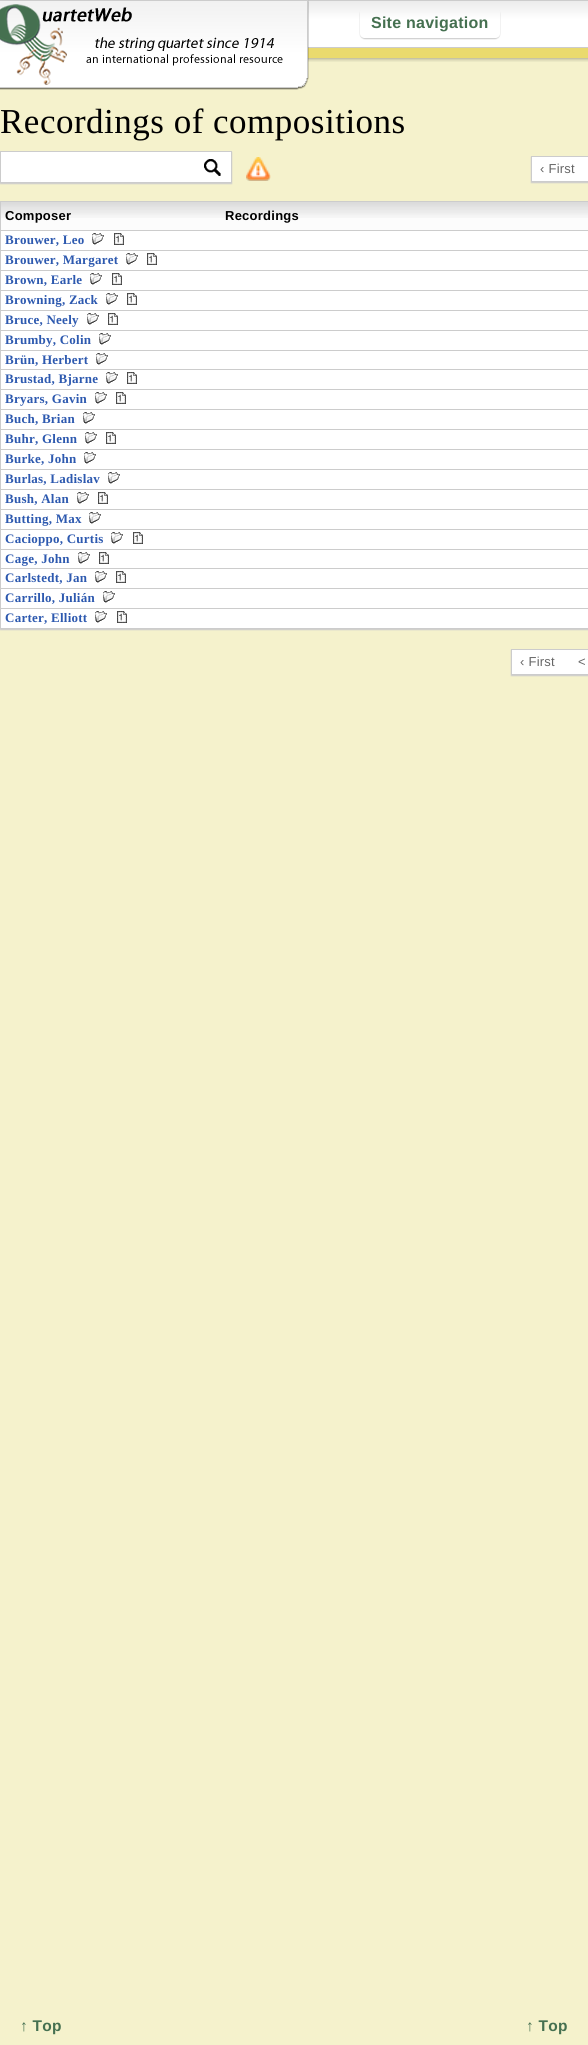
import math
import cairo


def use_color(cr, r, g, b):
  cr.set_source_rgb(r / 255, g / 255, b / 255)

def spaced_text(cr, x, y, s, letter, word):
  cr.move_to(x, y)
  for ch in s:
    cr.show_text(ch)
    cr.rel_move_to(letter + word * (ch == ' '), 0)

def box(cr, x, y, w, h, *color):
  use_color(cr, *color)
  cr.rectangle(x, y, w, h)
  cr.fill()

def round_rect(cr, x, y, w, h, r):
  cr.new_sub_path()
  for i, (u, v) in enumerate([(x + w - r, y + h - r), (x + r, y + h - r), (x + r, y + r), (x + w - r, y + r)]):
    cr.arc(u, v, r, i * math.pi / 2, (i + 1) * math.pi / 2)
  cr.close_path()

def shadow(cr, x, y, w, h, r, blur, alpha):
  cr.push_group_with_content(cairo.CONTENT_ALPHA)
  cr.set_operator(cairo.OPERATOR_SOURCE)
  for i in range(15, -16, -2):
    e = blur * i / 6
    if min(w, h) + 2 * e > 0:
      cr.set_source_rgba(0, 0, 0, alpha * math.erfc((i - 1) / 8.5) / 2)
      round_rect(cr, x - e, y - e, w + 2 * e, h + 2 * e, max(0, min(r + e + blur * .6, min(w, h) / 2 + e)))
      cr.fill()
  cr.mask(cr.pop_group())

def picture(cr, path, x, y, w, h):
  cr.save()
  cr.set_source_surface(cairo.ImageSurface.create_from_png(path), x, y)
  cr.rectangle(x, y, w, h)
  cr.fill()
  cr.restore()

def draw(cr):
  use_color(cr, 245, 242, 204)
  cr.paint()
  picture(cr, "img_01.png", 308, 0, 280, 62)
  picture(cr, "img_02.png", 0, 0, 309, 90)
  cr.save()
  cr.set_fill_rule(cairo.FILL_RULE_EVEN_ODD)
  cr.new_path()
  cr.move_to(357, 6)
  cr.line_to(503, 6)
  cr.line_to(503, 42)
  cr.line_to(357, 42)
  cr.close_path()
  cr.move_to(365, 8)
  cr.line_to(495, 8)
  cr.curve_to(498, 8, 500, 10, 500, 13)
  cr.line_to(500, 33)
  cr.curve_to(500, 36, 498, 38, 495, 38)
  cr.line_to(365, 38)
  cr.curve_to(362, 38, 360, 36, 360, 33)
  cr.line_to(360, 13)
  cr.curve_to(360, 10, 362, 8, 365, 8)
  cr.close_path()
  cr.clip()
  use_color(cr, 204, 204, 204)
  shadow(cr, 360, 9, 140, 30, 5, 0.5, 1)
  cr.restore()
  use_color(cr, 204, 204, 204)
  shadow(cr, 0, 152, 232, 32, 0, 0.5, 1)
  use_color(cr, 255, 255, 255)
  cr.rectangle(0.5, 151.5, 231, 31)
  cr.fill_preserve()
  use_color(cr, 204, 204, 204)
  cr.set_line_width(1)
  cr.stroke()
  picture(cr, "img_03.png", 204, 159, 17, 17)
  picture(cr, "img_04.png", 246, 157, 25, 24)
  use_color(cr, 204, 204, 204)
  shadow(cr, 531, 157, 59, 26, 0, 0.5, 1)
  use_color(cr, 255, 255, 255)
  cr.rectangle(531.5, 156.5, 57, 25)
  cr.fill_preserve()
  use_color(cr, 204, 204, 204)
  cr.stroke()
  use_color(cr, 204, 204, 204)
  shadow(cr, 0, 202, 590, 428, 0, 0.5, 1)
  box(cr, 1, 231, 587, 397, 255, 255, 255)
  box(cr, 0, 201, 588, 1, 204, 204, 204)
  box(cr, 0, 201, 1, 428, 204, 204, 204)
  box(cr, 1, 218, 587, 12, 252, 252, 252)
  picture(cr, "img_05.png", 1, 202, 220, 16)
  picture(cr, "img_06.png", 221, 202, 367, 16)
  picture(cr, "img_07.png", 92, 233, 12, 12)
  picture(cr, "img_08.png", 114, 233, 10, 12)
  box(cr, 0, 250, 588, 1, 204, 204, 204)
  picture(cr, "img_07.png", 126, 253, 12, 12)
  picture(cr, "img_08.png", 147, 253, 10, 12)
  box(cr, 0, 270, 588, 1, 204, 204, 204)
  picture(cr, "img_07.png", 90, 273, 12, 12)
  picture(cr, "img_08.png", 112, 273, 10, 12)
  box(cr, 0, 290, 588, 1, 204, 204, 204)
  picture(cr, "img_07.png", 106, 293, 12, 12)
  picture(cr, "img_08.png", 127, 293, 10, 12)
  box(cr, 0, 310, 588, 1, 204, 204, 204)
  picture(cr, "img_07.png", 87, 313, 12, 12)
  picture(cr, "img_08.png", 108, 313, 10, 12)
  box(cr, 0, 330, 588, 1, 204, 204, 204)
  picture(cr, "img_07.png", 99, 333, 12, 12)
  box(cr, 0, 350, 588, 1, 204, 204, 204)
  picture(cr, "img_07.png", 96, 353, 12, 12)
  box(cr, 0, 369, 588, 1, 204, 204, 204)
  picture(cr, "img_07.png", 106, 372, 12, 12)
  picture(cr, "img_08.png", 127, 372, 10, 12)
  box(cr, 0, 389, 588, 1, 204, 204, 204)
  picture(cr, "img_07.png", 95, 392, 12, 12)
  picture(cr, "img_08.png", 116, 392, 10, 12)
  box(cr, 0, 409, 588, 1, 204, 204, 204)
  picture(cr, "img_07.png", 83, 412, 12, 12)
  box(cr, 0, 429, 588, 1, 204, 204, 204)
  picture(cr, "img_07.png", 85, 432, 12, 12)
  picture(cr, "img_08.png", 106, 432, 10, 12)
  box(cr, 0, 449, 588, 1, 204, 204, 204)
  picture(cr, "img_07.png", 84, 452, 12, 12)
  box(cr, 0, 469, 588, 1, 204, 204, 204)
  picture(cr, "img_07.png", 108, 472, 12, 12)
  box(cr, 0, 489, 588, 1, 204, 204, 204)
  picture(cr, "img_07.png", 77, 492, 12, 12)
  picture(cr, "img_08.png", 98, 492, 10, 12)
  box(cr, 0, 509, 588, 1, 204, 204, 204)
  picture(cr, "img_07.png", 89, 512, 12, 12)
  box(cr, 0, 529, 588, 1, 204, 204, 204)
  picture(cr, "img_07.png", 111, 532, 12, 12)
  picture(cr, "img_08.png", 133, 532, 10, 12)
  box(cr, 0, 549, 588, 1, 204, 204, 204)
  picture(cr, "img_07.png", 78, 552, 12, 12)
  picture(cr, "img_08.png", 99, 552, 10, 12)
  box(cr, 0, 568, 588, 1, 204, 204, 204)
  picture(cr, "img_07.png", 95, 571, 12, 12)
  picture(cr, "img_08.png", 116, 571, 10, 12)
  box(cr, 0, 588, 588, 1, 204, 204, 204)
  picture(cr, "img_07.png", 103, 591, 12, 12)
  box(cr, 0, 608, 588, 1, 204, 204, 204)
  picture(cr, "img_07.png", 95, 611, 12, 12)
  picture(cr, "img_08.png", 117, 611, 10, 12)
  use_color(cr, 204, 204, 204)
  shadow(cr, 511, 650, 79, 26, 0, 0.5, 1)
  use_color(cr, 255, 255, 255)
  cr.rectangle(511.5, 649.5, 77, 25)
  cr.fill_preserve()
  use_color(cr, 204, 204, 204)
  cr.stroke()
  cr.select_font_face("Liberation Sans", cairo.FONT_SLANT_NORMAL, cairo.FONT_WEIGHT_BOLD)
  cr.set_font_size(16)
  use_color(cr, 69, 112, 80)
  spaced_text(cr, 371, 28, "Site navigation", 0.25, 0)
  cr.select_font_face("Liberation Serif")
  cr.set_font_size(35)
  use_color(cr, 0, 0, 0)
  spaced_text(cr, 0, 133, "Recordings of compositions", 0.5, 0)
  cr.select_font_face("Liberation Sans")
  cr.set_font_size(13)
  use_color(cr, 102, 102, 102)
  spaced_text(cr, 540, 173, "‹ First", 0.25, 0)
  cr.select_font_face("Liberation Sans", cairo.FONT_SLANT_NORMAL, cairo.FONT_WEIGHT_BOLD)
  use_color(cr, 0, 0, 0)
  spaced_text(cr, 5, 220, "Composer", 0.25, 0)
  spaced_text(cr, 225, 220, "Recordings", 0.25, 0)
  cr.select_font_face("Liberation Serif", cairo.FONT_SLANT_NORMAL, cairo.FONT_WEIGHT_BOLD)
  use_color(cr, 45, 89, 175)
  spaced_text(cr, 5, 244, "Brouwer, Leo", 0.25, 0)
  spaced_text(cr, 5, 264, "Brouwer, Margaret", 0.25, 0)
  spaced_text(cr, 5, 284, "Brown, Earle", 0.25, 0)
  spaced_text(cr, 5, 304, "Browning, Zack", 0.25, 0)
  spaced_text(cr, 5, 324, "Bruce, Neely", 0.25, 0)
  spaced_text(cr, 5, 344, "Brumby, Colin", 0.25, 0)
  spaced_text(cr, 5, 364, "Brün, Herbert", 0.25, 0)
  spaced_text(cr, 5, 383, "Brustad, Bjarne", 0.25, 0)
  spaced_text(cr, 5, 403, "Bryars, Gavin", 0.25, 0)
  spaced_text(cr, 5, 423, "Buch, Brian", 0.25, 0)
  spaced_text(cr, 5, 443, "Buhr, Glenn", 0.25, 0)
  spaced_text(cr, 5, 463, "Burke, John", 0.25, 0)
  spaced_text(cr, 5, 483, "Burlas, Ladislav", 0.25, 0)
  spaced_text(cr, 5, 503, "Bush, Alan", 0.25, 0)
  spaced_text(cr, 5, 523, "Butting, Max", 0.25, 0)
  spaced_text(cr, 5, 543, "Cacioppo, Curtis", 0.25, 0)
  spaced_text(cr, 5, 563, "Cage, John", 0.25, 0)
  spaced_text(cr, 5, 582, "Carlstedt, Jan", 0.25, 0)
  spaced_text(cr, 5, 602, "Carrillo, Julián", 0.25, 0)
  spaced_text(cr, 5, 622, "Carter, Elliott", 0.25, 0)
  cr.select_font_face("Liberation Sans")
  use_color(cr, 102, 102, 102)
  spaced_text(cr, 520, 666, "‹ First", 0.25, 0)
  spaced_text(cr, 578, 666, "<", 0.25, 0)
  cr.select_font_face("Liberation Sans", cairo.FONT_SLANT_NORMAL, cairo.FONT_WEIGHT_BOLD)
  cr.set_font_size(15.5)
  use_color(cr, 69, 112, 80)
  spaced_text(cr, 20, 2031, "↑ Top", 0.25, 0)
  spaced_text(cr, 526, 2031, "↑ Top", 0.25, 0)


surface = cairo.ImageSurface(cairo.FORMAT_RGB24, 588, 2045)
cr = cairo.Context(surface)
options = cairo.FontOptions()
options.set_hint_metrics(cairo.HINT_METRICS_OFF)
options.set_hint_style(cairo.HINT_STYLE_NONE)
cr.set_font_options(options)
cr.set_miter_limit(4)
draw(cr)
surface.write_to_png("out.png")
